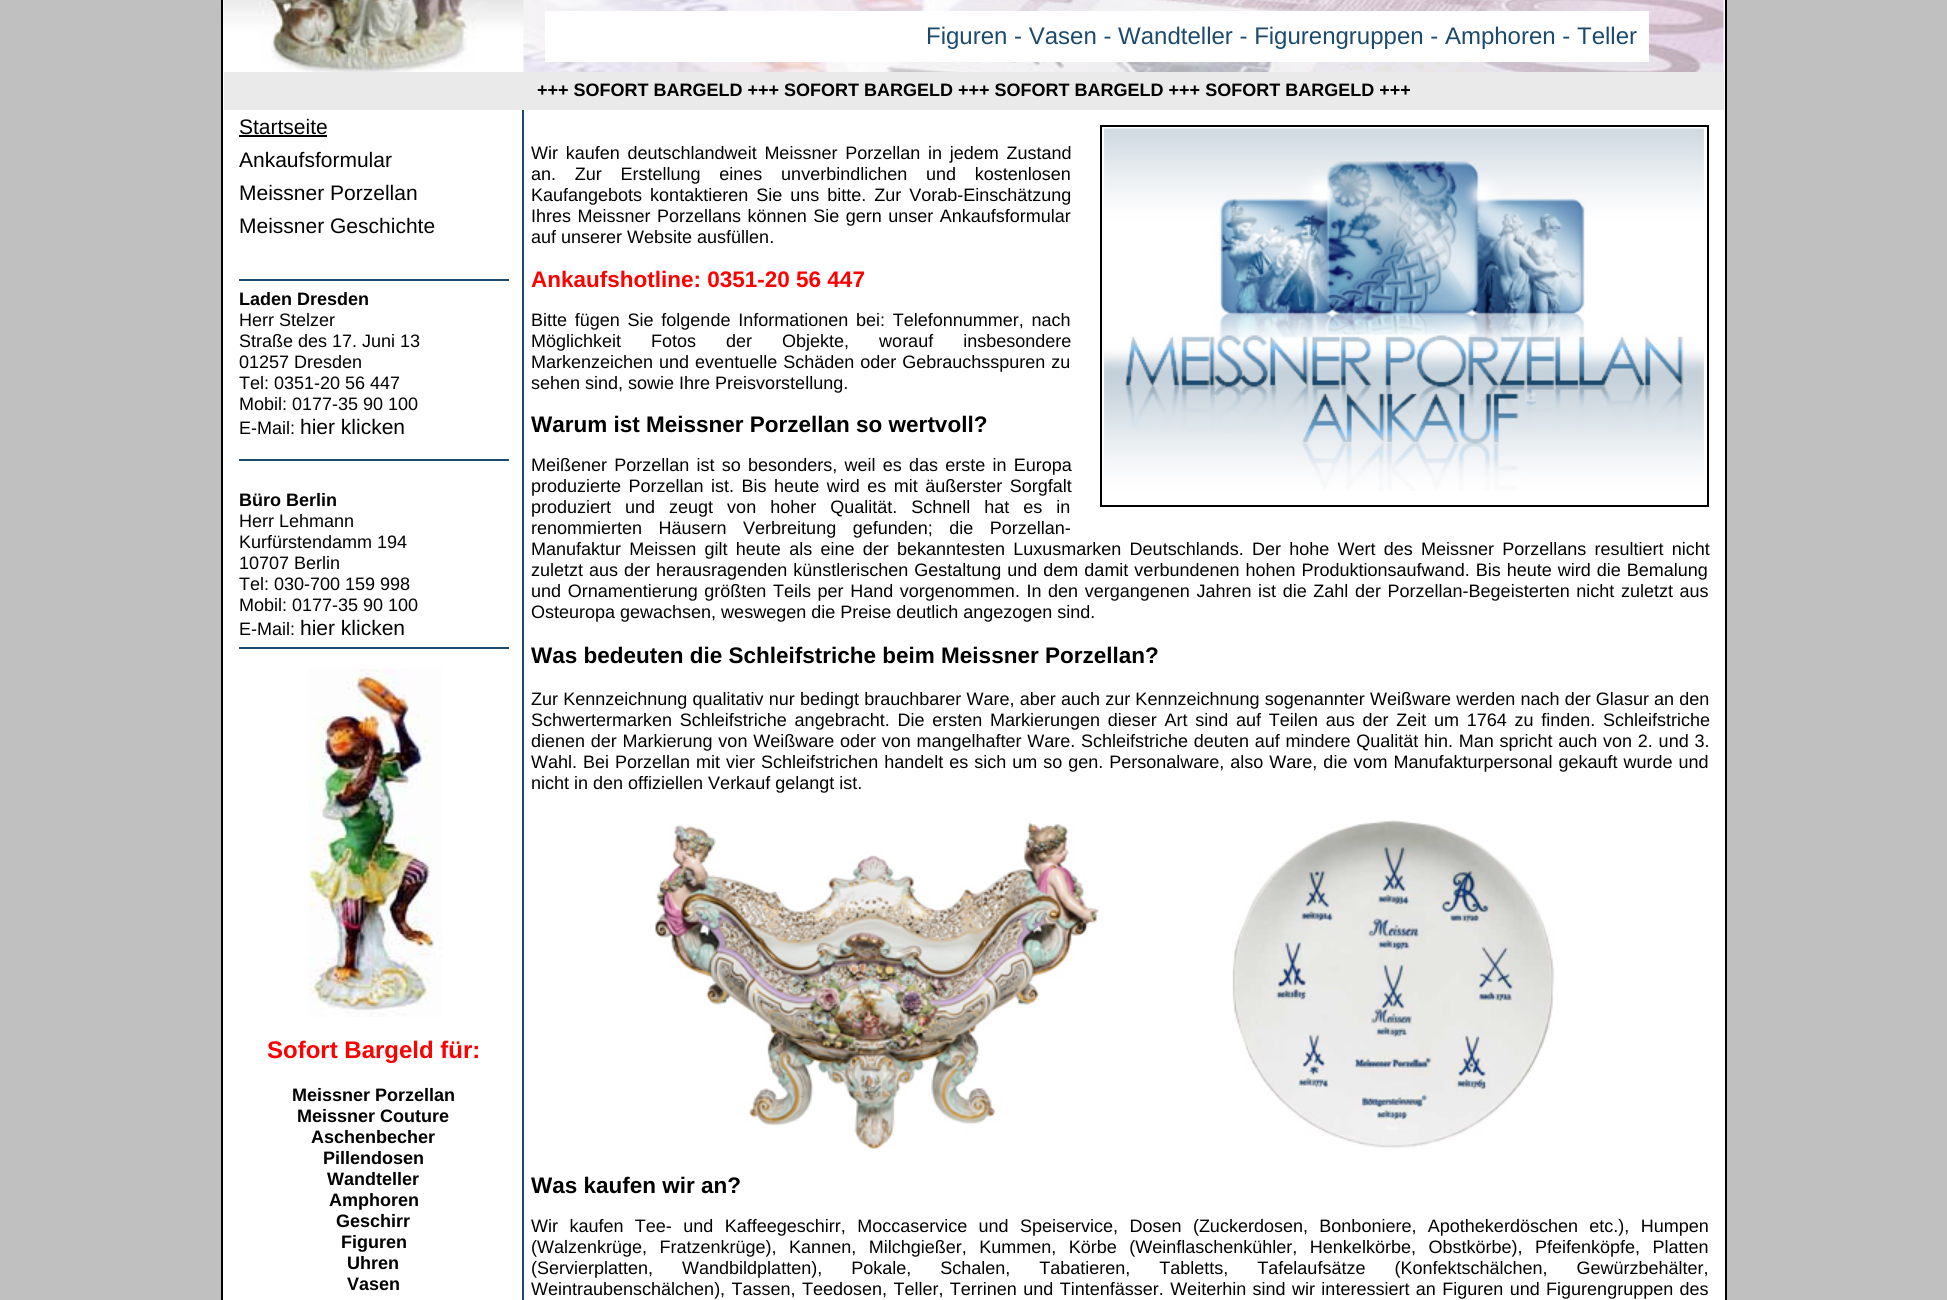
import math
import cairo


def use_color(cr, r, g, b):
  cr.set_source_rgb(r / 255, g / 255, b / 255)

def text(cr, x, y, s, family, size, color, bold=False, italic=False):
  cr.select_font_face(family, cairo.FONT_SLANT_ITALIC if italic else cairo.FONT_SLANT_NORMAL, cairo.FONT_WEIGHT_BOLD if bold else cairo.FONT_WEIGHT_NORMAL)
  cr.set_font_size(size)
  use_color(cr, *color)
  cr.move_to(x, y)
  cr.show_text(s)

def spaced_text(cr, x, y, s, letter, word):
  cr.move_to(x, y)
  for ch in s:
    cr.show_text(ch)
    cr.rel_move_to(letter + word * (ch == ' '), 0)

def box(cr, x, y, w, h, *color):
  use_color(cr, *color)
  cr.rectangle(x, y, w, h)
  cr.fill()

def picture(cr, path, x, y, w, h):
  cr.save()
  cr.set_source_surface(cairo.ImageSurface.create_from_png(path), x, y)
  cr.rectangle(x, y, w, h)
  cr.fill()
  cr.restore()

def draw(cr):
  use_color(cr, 192, 192, 192)
  cr.paint()
  use_color(cr, 255, 255, 255)
  cr.rectangle(222, -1, 1504, 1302)
  cr.fill_preserve()
  use_color(cr, 0, 0, 0)
  cr.stroke()
  picture(cr, "img_01.png", 223, 0, 1501, 81)
  box(cr, 545, 11, 1104, 51, 255, 255, 255)
  box(cr, 224, 72, 1500, 38, 234, 234, 234)
  box(cr, 239, 135, 88, 2, 0, 0, 0)
  box(cr, 239, 279, 270, 2, 28, 74, 109)
  box(cr, 239, 459, 270, 2, 28, 74, 109)
  box(cr, 239, 647, 270, 2, 28, 74, 109)
  picture(cr, "img_02.png", 308, 668, 134, 349)
  box(cr, 522, 110, 2, 1190, 28, 74, 109)
  cr.rectangle(1101, 126, 607, 380)
  use_color(cr, 0, 0, 0)
  cr.stroke()
  picture(cr, "img_03.png", 1104, 128, 600, 363)
  picture(cr, "img_04.png", 655, 820, 900, 329)
  text(cr, 926, 44, "Figuren - Vasen - Wandteller - Figurengruppen - Amphoren - Teller", "Liberation Sans", 24, (28, 74, 109))
  text(cr, 537, 96, "+++ SOFORT BARGELD +++ SOFORT BARGELD +++ SOFORT BARGELD +++ SOFORT BARGELD +++", "Liberation Sans", 18, (0, 0, 0), bold=True)
  text(cr, 239, 134, "Startseite", "Liberation Sans", 21, (0, 0, 0))
  text(cr, 239, 167, "Ankaufsformular", "Liberation Sans", 21, (0, 0, 0))
  text(cr, 239, 200, "Meissner Porzellan", "Liberation Sans", 21, (0, 0, 0))
  text(cr, 239, 233, "Meissner Geschichte", "Liberation Sans", 21, (0, 0, 0))
  text(cr, 239, 305, "Laden Dresden", "Liberation Sans", 18, (0, 0, 0), bold=True)
  text(cr, 239, 326, "Herr Stelzer", "Liberation Sans", 18, (0, 0, 0))
  text(cr, 239, 347, "Straße des 17. Juni 13", "Liberation Sans", 18, (0, 0, 0))
  text(cr, 239, 368, "01257 Dresden", "Liberation Sans", 18, (0, 0, 0))
  text(cr, 239, 389, "Tel: 0351-20 56 447", "Liberation Sans", 18, (0, 0, 0))
  text(cr, 239, 410, "Mobil: 0177-35 90 100", "Liberation Sans", 18, (0, 0, 0))
  text(cr, 239, 434, "E-Mail:", "Liberation Sans", 18, (0, 0, 0))
  text(cr, 300, 434, "hier klicken", "Liberation Sans", 21, (0, 0, 0))
  text(cr, 239, 506, "Büro Berlin", "Liberation Sans", 18, (0, 0, 0), bold=True)
  text(cr, 239, 527, "Herr Lehmann", "Liberation Sans", 18, (0, 0, 0))
  text(cr, 239, 548, "Kurfürstendamm 194", "Liberation Sans", 18, (0, 0, 0))
  text(cr, 239, 569, "10707 Berlin", "Liberation Sans", 18, (0, 0, 0))
  text(cr, 239, 590, "Tel: 030-700 159 998", "Liberation Sans", 18, (0, 0, 0))
  text(cr, 239, 611, "Mobil: 0177-35 90 100", "Liberation Sans", 18, (0, 0, 0))
  text(cr, 239, 635, "E-Mail:", "Liberation Sans", 18, (0, 0, 0))
  text(cr, 300, 635, "hier klicken", "Liberation Sans", 21, (0, 0, 0))
  text(cr, 267, 1058, "Sofort Bargeld für:", "Liberation Sans", 24, (255, 0, 0), bold=True)
  text(cr, 292, 1101, "Meissner Porzellan", "Liberation Sans", 18, (0, 0, 0), bold=True)
  text(cr, 297, 1122, "Meissner Couture", "Liberation Sans", 18, (0, 0, 0), bold=True)
  text(cr, 311, 1143, "Aschenbecher", "Liberation Sans", 18, (0, 0, 0), bold=True)
  text(cr, 323, 1164, "Pillendosen", "Liberation Sans", 18, (0, 0, 0), bold=True)
  text(cr, 327, 1185, "Wandteller", "Liberation Sans", 18, (0, 0, 0), bold=True)
  text(cr, 329, 1206, "Amphoren", "Liberation Sans", 18, (0, 0, 0), bold=True)
  text(cr, 336, 1227, "Geschirr", "Liberation Sans", 18, (0, 0, 0), bold=True)
  text(cr, 341, 1248, "Figuren", "Liberation Sans", 18, (0, 0, 0), bold=True)
  text(cr, 347, 1269, "Uhren", "Liberation Sans", 18, (0, 0, 0), bold=True)
  text(cr, 347, 1290, "Vasen", "Liberation Sans", 18, (0, 0, 0), bold=True)
  cr.select_font_face("Liberation Sans")
  spaced_text(cr, 531, 159, "Wir kaufen deutschlandweit Meissner Porzellan in jedem Zustand", 0, 2.75)
  spaced_text(cr, 531, 180, "an. Zur Erstellung eines unverbindlichen und kostenlosen", 0, 13.75)
  spaced_text(cr, 531, 201, "Kaufangebots kontaktieren Sie uns bitte. Zur Vorab-Einschätzung", 0, 3)
  spaced_text(cr, 531, 222, "Ihres Meissner Porzellans können Sie gern unser Ankaufsformular", 0, 1.5)
  text(cr, 531, 243, "auf unserer Website ausfüllen.", "Liberation Sans", 18, (0, 0, 0))
  text(cr, 531, 287, "Ankaufshotline: 0351-20 56 447", "Liberation Sans", 22.5, (255, 0, 0), bold=True)
  cr.select_font_face("Liberation Sans")
  cr.set_font_size(18)
  use_color(cr, 0, 0, 0)
  spaced_text(cr, 531, 326, "Bitte fügen Sie folgende Informationen bei: Telefonnummer, nach", 0, 2.75)
  spaced_text(cr, 531, 347, "Möglichkeit Fotos der Objekte, worauf insbesondere", 0, 25)
  spaced_text(cr, 531, 368, "Markenzeichen und eventuelle Schäden oder Gebrauchsspuren zu", 0, 1)
  text(cr, 531, 389, "sehen sind, sowie Ihre Preisvorstellung.", "Liberation Sans", 18, (0, 0, 0))
  text(cr, 531, 432, "Warum ist Meissner Porzellan so wertvoll?", "Liberation Sans", 22.5, (0, 0, 0), bold=True)
  cr.select_font_face("Liberation Sans")
  cr.set_font_size(18)
  spaced_text(cr, 531, 471, "Meißener Porzellan ist so besonders, weil es das erste in Europa", 0, 2.25)
  spaced_text(cr, 531, 492, "produzierte Porzellan ist. Bis heute wird es mit äußerster Sorgfalt", 0, 2.5)
  spaced_text(cr, 531, 513, "produziert und zeugt von hoher Qualität. Schnell hat es in", 0, 9)
  spaced_text(cr, 531, 534, "renommierten Häusern Verbreitung gefunden; die Porzellan-", 0, 11.5)
  spaced_text(cr, 531, 555, "Manufaktur Meissen gilt heute als eine der bekanntesten Luxusmarken Deutschlands. Der hohe Wert des Meissner Porzellans resultiert nicht", 0, 3.25)
  spaced_text(cr, 531, 576, "zuletzt aus der herausragenden künstlerischen Gestaltung und dem damit verbundenen hohen Produktionsaufwand. Bis heute wird die Bemalung", 0, 1)
  spaced_text(cr, 531, 597, "und Ornamentierung größten Teils per Hand vorgenommen. In den vergangenen Jahren ist die Zahl der Porzellan-Begeisterten nicht zuletzt aus", 0, 1.6)
  text(cr, 531, 618, "Osteuropa gewachsen, weswegen die Preise deutlich angezogen sind.", "Liberation Sans", 18, (0, 0, 0))
  text(cr, 531, 663, "Was bedeuten die Schleifstriche beim Meissner Porzellan?", "Liberation Sans", 22.5, (0, 0, 0), bold=True)
  cr.select_font_face("Liberation Sans")
  cr.set_font_size(18)
  spaced_text(cr, 531, 705, "Zur Kennzeichnung qualitativ nur bedingt brauchbarer Ware, aber auch zur Kennzeichnung sogenannter Weißware werden nach der Glasur an den", 0, 0.2)
  spaced_text(cr, 531, 726, "Schwertermarken Schleifstriche angebracht. Die ersten Markierungen dieser Art sind auf Teilen aus der Zeit um 1764 zu finden. Schleifstriche", 0, 2.75)
  spaced_text(cr, 531, 747, "dienen der Markierung von Weißware oder von mangelhafter Ware. Schleifstriche deuten auf mindere Qualität hin. Man spricht auch von 2. und 3.", 0, 0.75)
  spaced_text(cr, 531, 768, "Wahl. Bei Porzellan mit vier Schleifstrichen handelt es sich um so gen. Personalware, also Ware, die vom Manufakturpersonal gekauft wurde und", 0, 1)
  text(cr, 531, 789, "nicht in den offiziellen Verkauf gelangt ist.", "Liberation Sans", 18, (0, 0, 0))
  text(cr, 531, 1193, "Was kaufen wir an?", "Liberation Sans", 22.5, (0, 0, 0), bold=True)
  cr.select_font_face("Liberation Sans")
  cr.set_font_size(18)
  spaced_text(cr, 531, 1232, "Wir kaufen Tee- und Kaffeegeschirr, Moccaservice und Speiservice, Dosen (Zuckerdosen, Bonboniere, Apothekerdöschen etc.), Humpen", 0, 6.4)
  spaced_text(cr, 531, 1253, "(Walzenkrüge, Fratzenkrüge), Kannen, Milchgießer, Kummen, Körbe (Weinflaschenkühler, Henkelkörbe, Obstkörbe), Pfeifenköpfe, Platten", 0, 7.5)
  spaced_text(cr, 531, 1274, "(Servierplatten, Wandbildplatten), Pokale, Schalen, Tabatieren, Tabletts, Tafelaufsätze (Konfektschälchen, Gewürzbehälter,", 0, 24)
  spaced_text(cr, 531, 1295, "Weintraubenschälchen), Tassen, Teedosen, Teller, Terrinen und Tintenfässer. Weiterhin sind wir interessiert an Figuren und Figurengruppen des", 0, 1.4)


surface = cairo.ImageSurface(cairo.FORMAT_RGB24, 1947, 1300)
cr = cairo.Context(surface)
options = cairo.FontOptions()
options.set_hint_metrics(cairo.HINT_METRICS_OFF)
options.set_hint_style(cairo.HINT_STYLE_NONE)
cr.set_font_options(options)
cr.set_miter_limit(4)
draw(cr)
surface.write_to_png("out.png")
